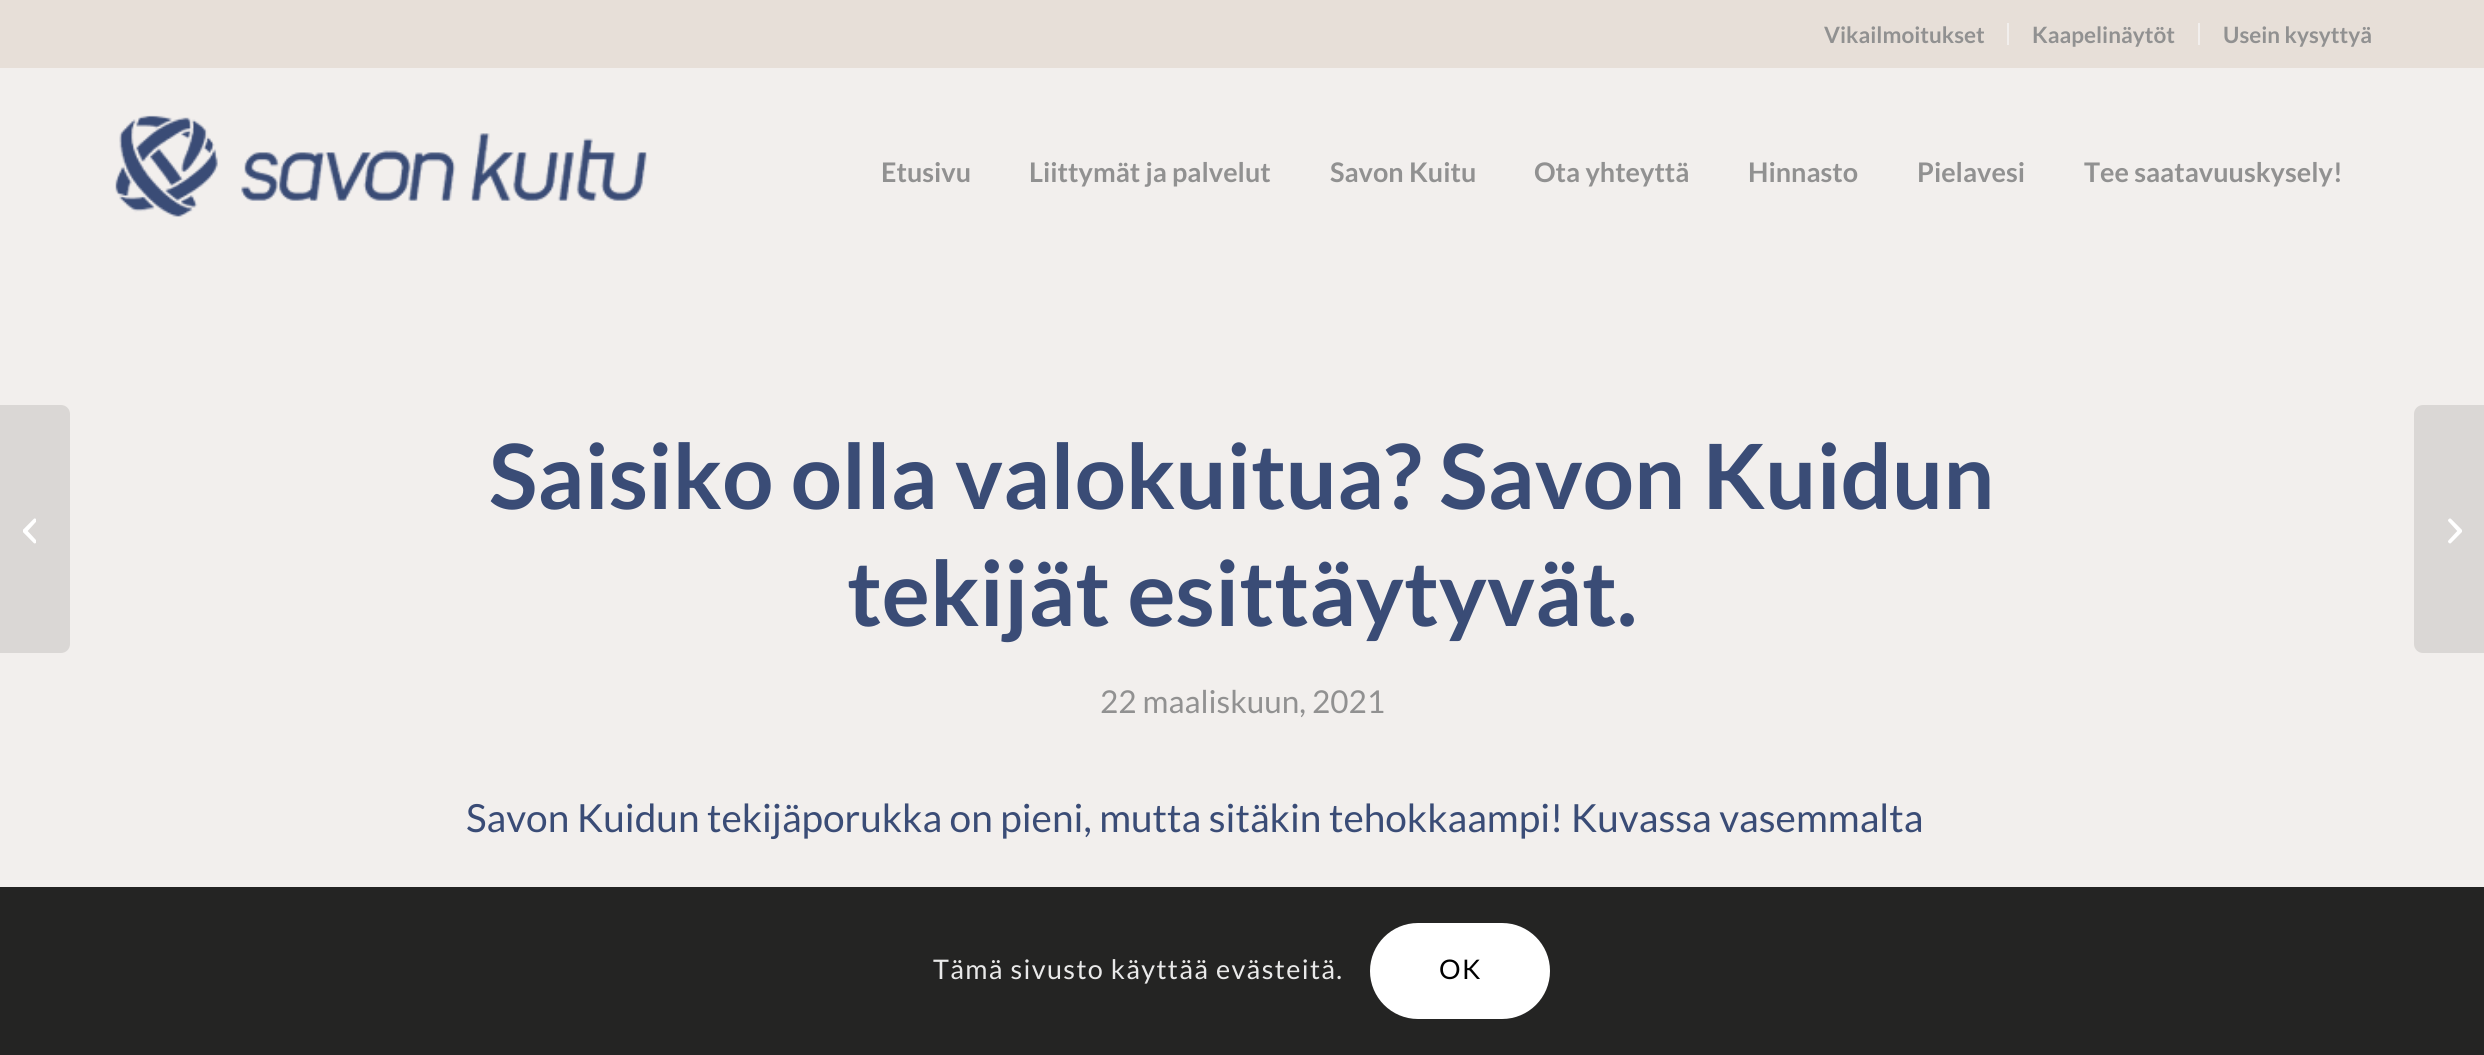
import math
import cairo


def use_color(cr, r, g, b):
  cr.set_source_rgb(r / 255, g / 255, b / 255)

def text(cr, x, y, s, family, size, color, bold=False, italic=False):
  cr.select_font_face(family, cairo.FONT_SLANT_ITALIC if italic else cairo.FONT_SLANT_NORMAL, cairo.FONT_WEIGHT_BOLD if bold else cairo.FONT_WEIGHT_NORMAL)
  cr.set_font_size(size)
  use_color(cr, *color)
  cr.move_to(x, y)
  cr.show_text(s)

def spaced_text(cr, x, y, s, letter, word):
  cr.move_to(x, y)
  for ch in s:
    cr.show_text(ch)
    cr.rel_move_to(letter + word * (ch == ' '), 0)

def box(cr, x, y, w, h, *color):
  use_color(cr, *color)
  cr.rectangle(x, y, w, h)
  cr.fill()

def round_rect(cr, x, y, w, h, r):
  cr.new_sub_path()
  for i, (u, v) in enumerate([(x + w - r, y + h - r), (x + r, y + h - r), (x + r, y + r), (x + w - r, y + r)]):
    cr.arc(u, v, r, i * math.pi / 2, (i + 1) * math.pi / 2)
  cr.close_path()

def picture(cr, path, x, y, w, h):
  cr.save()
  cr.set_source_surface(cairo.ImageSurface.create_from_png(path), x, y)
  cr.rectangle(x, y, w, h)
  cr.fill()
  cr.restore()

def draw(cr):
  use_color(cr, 242, 239, 237)
  cr.paint()
  box(cr, 0, 0, 2484, 68, 231, 223, 216)
  box(cr, 2007, 23, 2, 22, 242, 239, 237)
  box(cr, 2198, 23, 2, 22, 242, 239, 237)
  picture(cr, "img_01.png", 115, 115, 532, 102)
  use_color(cr, 218, 215, 213)
  cr.new_path()
  cr.move_to(0, 405)
  cr.line_to(61, 405)
  cr.curve_to(66, 405, 70, 409, 70, 414)
  cr.line_to(70, 644)
  cr.curve_to(70, 649, 66, 653, 61, 653)
  cr.line_to(0, 653)
  cr.close_path()
  cr.fill()
  picture(cr, "img_02.png", 23, 518, 13, 26)
  cr.new_path()
  cr.move_to(2423, 405)
  cr.line_to(2484, 405)
  cr.line_to(2484, 653)
  cr.line_to(2423, 653)
  cr.curve_to(2418, 653, 2414, 649, 2414, 644)
  cr.line_to(2414, 414)
  cr.curve_to(2414, 409, 2418, 405, 2423, 405)
  cr.close_path()
  cr.fill()
  picture(cr, "img_03.png", 2448, 518, 14, 26)
  cr.set_source_rgba(0, 0, 0, 0.85)
  cr.rectangle(0, 887, 2484, 168)
  cr.fill()
  use_color(cr, 255, 255, 255)
  round_rect(cr, 1370, 923, 180, 96, 48)
  cr.fill()
  text(cr, 1824, 43, "Vikailmoitukset", "Lato", 22.5, (145, 145, 145), bold=True)
  text(cr, 2032, 43, "Kaapelinäytöt", "Lato", 22.5, (145, 145, 145), bold=True)
  text(cr, 2223, 43, "Usein kysyttyä", "Lato", 22.5, (145, 145, 145), bold=True)
  text(cr, 881, 182, "Etusivu", "Lato", 27, (145, 145, 145), bold=True)
  text(cr, 1029, 182, "Liittymät ja palvelut", "Lato", 27, (145, 145, 145), bold=True)
  text(cr, 1330, 182, "Savon Kuitu", "Lato", 27, (145, 145, 145), bold=True)
  text(cr, 1534, 182, "Ota yhteyttä", "Lato", 27, (145, 145, 145), bold=True)
  text(cr, 1748, 182, "Hinnasto", "Lato", 27, (145, 145, 145), bold=True)
  text(cr, 1917, 182, "Pielavesi", "Lato", 27, (145, 145, 145), bold=True)
  text(cr, 2084, 182, "Tee saatavuuskysely!", "Lato", 27, (145, 145, 145), bold=True)
  text(cr, 489, 509, "Saisiko olla valokuitua? Savon Kuidun", "Lato", 90, (58, 76, 118), bold=True)
  text(cr, 847, 626, "tekijät esittäytyvät.", "Lato", 90, (58, 76, 118), bold=True)
  text(cr, 1100, 713, "22 maaliskuun, 2021", "Lato", 31.5, (145, 145, 145))
  text(cr, 466, 832, "Savon Kuidun tekijäporukka on pieni, mutta sitäkin tehokkaampi! Kuvassa vasemmalta", "Lato", 38.8, (58, 76, 118))
  cr.set_font_size(27)
  use_color(cr, 233, 233, 233)
  spaced_text(cr, 933, 979, "Tämä sivusto käyttää evästeitä.", 1.35, 0)
  use_color(cr, 0, 0, 0)
  spaced_text(cr, 1439, 979, "OK", 1.35, 0)


surface = cairo.ImageSurface(cairo.FORMAT_RGB24, 2484, 1055)
cr = cairo.Context(surface)
options = cairo.FontOptions()
options.set_hint_metrics(cairo.HINT_METRICS_OFF)
options.set_hint_style(cairo.HINT_STYLE_NONE)
cr.set_font_options(options)
cr.set_miter_limit(4)
draw(cr)
surface.write_to_png("out.png")
